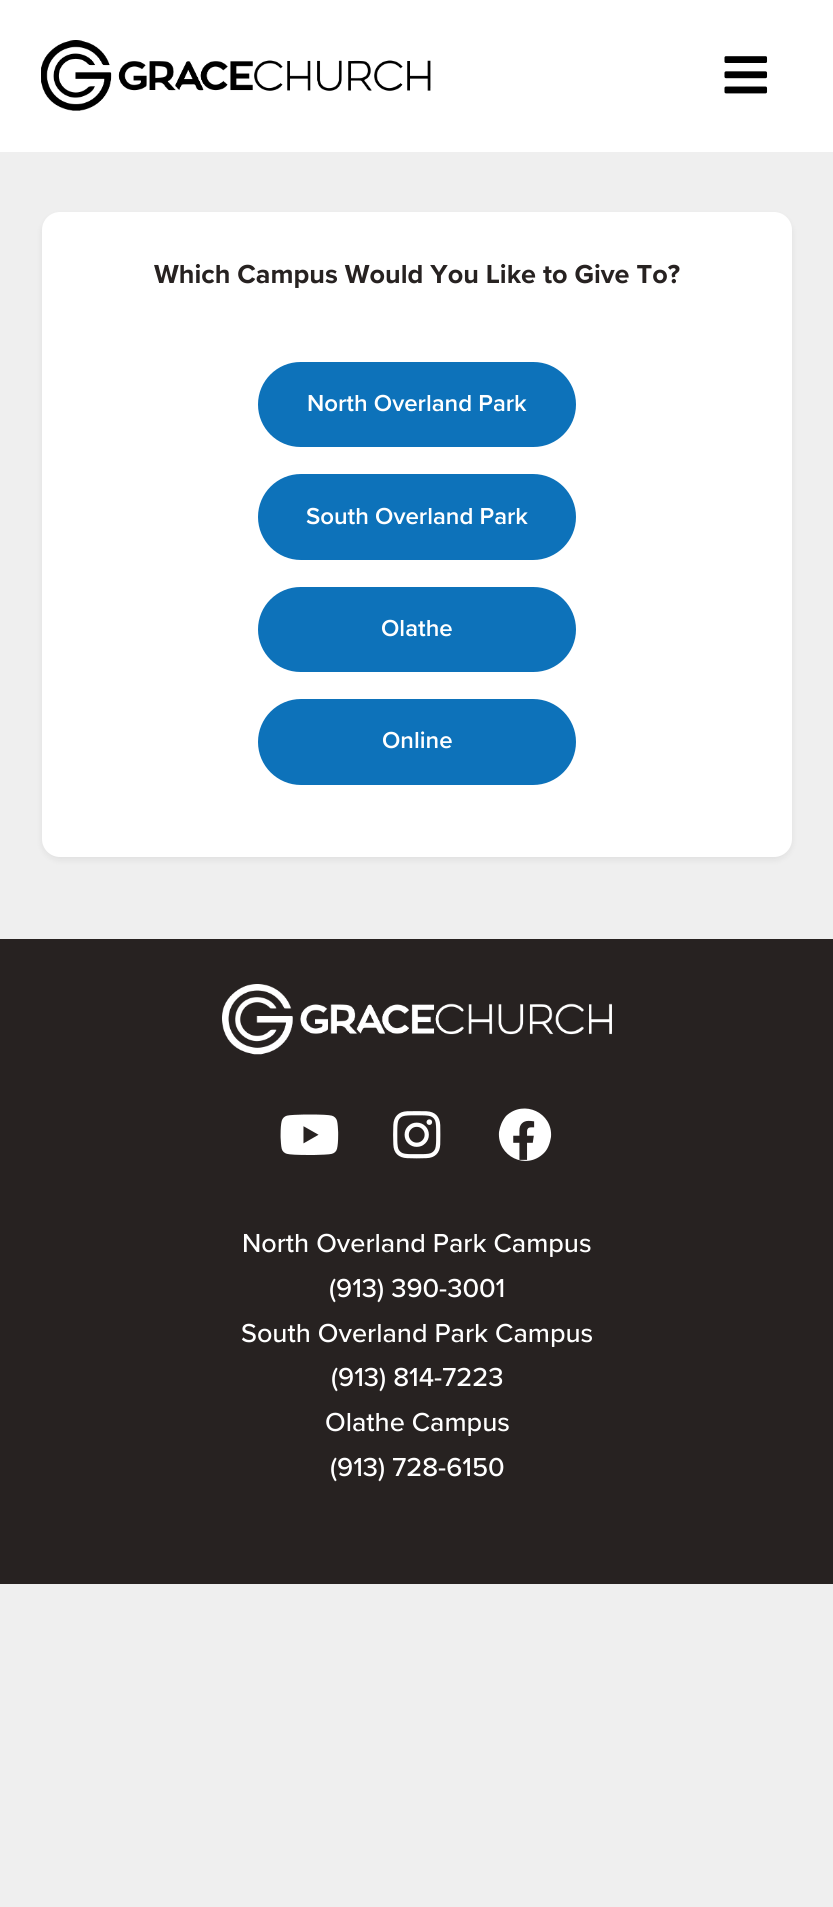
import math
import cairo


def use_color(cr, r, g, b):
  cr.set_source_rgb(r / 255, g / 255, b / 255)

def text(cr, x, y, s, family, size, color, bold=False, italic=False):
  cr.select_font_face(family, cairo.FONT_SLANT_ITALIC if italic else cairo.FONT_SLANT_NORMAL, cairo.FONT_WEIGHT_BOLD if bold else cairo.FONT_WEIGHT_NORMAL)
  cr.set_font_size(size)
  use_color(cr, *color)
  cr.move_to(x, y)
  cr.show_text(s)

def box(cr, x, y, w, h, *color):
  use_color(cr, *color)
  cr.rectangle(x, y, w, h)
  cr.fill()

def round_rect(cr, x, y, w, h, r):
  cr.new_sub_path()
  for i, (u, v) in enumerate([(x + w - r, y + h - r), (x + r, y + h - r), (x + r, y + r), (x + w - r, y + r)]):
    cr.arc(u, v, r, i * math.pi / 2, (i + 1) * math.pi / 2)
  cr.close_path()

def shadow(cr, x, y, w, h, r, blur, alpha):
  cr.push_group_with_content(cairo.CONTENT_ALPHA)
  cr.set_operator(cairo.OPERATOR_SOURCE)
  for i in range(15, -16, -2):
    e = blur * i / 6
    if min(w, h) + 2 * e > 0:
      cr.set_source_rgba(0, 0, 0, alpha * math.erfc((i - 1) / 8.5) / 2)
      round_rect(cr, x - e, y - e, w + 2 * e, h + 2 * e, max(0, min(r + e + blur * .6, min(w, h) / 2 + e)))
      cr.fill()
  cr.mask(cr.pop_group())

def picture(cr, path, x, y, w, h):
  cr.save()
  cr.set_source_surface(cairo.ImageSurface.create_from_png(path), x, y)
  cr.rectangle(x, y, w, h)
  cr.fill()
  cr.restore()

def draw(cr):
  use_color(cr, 239, 239, 239)
  cr.paint()
  box(cr, 0, 0, 833, 152, 255, 255, 255)
  picture(cr, "img_01.png", 41, 40, 390, 71)
  picture(cr, "img_02.png", 724, 56, 44, 38)
  use_color(cr, 0, 0, 0)
  shadow(cr, 42, 215, 750, 645, 18, 3.5, 0.07)
  use_color(cr, 255, 255, 255)
  round_rect(cr, 42, 212, 750, 645, 18)
  cr.fill()
  use_color(cr, 13, 114, 186)
  round_rect(cr, 259.5, 363.5, 315, 82, 41)
  cr.fill_preserve()
  cr.set_line_width(3)
  cr.stroke()
  round_rect(cr, 259.5, 475.5, 315, 83, 41.5)
  cr.fill_preserve()
  cr.stroke()
  round_rect(cr, 259.5, 588.5, 315, 82, 41)
  cr.fill_preserve()
  cr.stroke()
  round_rect(cr, 259.5, 700.5, 315, 83, 41.5)
  cr.fill_preserve()
  cr.stroke()
  box(cr, 0, 939, 833, 645, 39, 34, 33)
  picture(cr, "img_03.png", 222, 984, 390, 71)
  picture(cr, "img_04.png", 280, 1114, 59, 41)
  picture(cr, "img_05.png", 393, 1111, 48, 48)
  use_color(cr, 255, 255, 255)
  cr.new_path()
  cr.move_to(506, 1116)
  cr.curve_to(524, 1099, 553, 1113, 551, 1137)
  cr.curve_to(550, 1143, 548, 1149, 544, 1153)
  cr.curve_to(526, 1171, 497, 1156, 499, 1132)
  cr.curve_to(500, 1126, 502, 1121, 506, 1116)
  cr.close_path()
  cr.fill()
  picture(cr, "img_06.png", 513, 1120, 22, 40)
  text(cr, 154, 283, "Which Campus Would You Like to Give To?", "Proxima Nova", 27, (39, 34, 33), bold=True)
  text(cr, 307, 411, "North Overland Park", "Proxima Nova SemiBold", 24, (255, 255, 255))
  text(cr, 306, 524, "South Overland Park", "Proxima Nova SemiBold", 24, (255, 255, 255))
  text(cr, 381, 636, "Olathe", "Proxima Nova SemiBold", 24, (255, 255, 255))
  text(cr, 382, 748, "Online", "Proxima Nova SemiBold", 24, (255, 255, 255))
  text(cr, 242, 1252, "North Overland Park Campus", "Proxima Nova Medium", 27, (255, 255, 255))
  text(cr, 329, 1297, "(913) 390-3001", "Proxima Nova Medium", 27, (255, 255, 255))
  text(cr, 241, 1342, "South Overland Park Campus", "Proxima Nova Medium", 27, (255, 255, 255))
  text(cr, 331, 1386, "(913) 814-7223", "Proxima Nova Medium", 27, (255, 255, 255))
  text(cr, 325, 1431, "Olathe Campus", "Proxima Nova Medium", 27, (255, 255, 255))
  text(cr, 330, 1476, "(913) 728-6150", "Proxima Nova Medium", 27, (255, 255, 255))


surface = cairo.ImageSurface(cairo.FORMAT_RGB24, 833, 1907)
cr = cairo.Context(surface)
options = cairo.FontOptions()
options.set_hint_metrics(cairo.HINT_METRICS_OFF)
options.set_hint_style(cairo.HINT_STYLE_NONE)
cr.set_font_options(options)
cr.set_miter_limit(4)
draw(cr)
surface.write_to_png("out.png")
